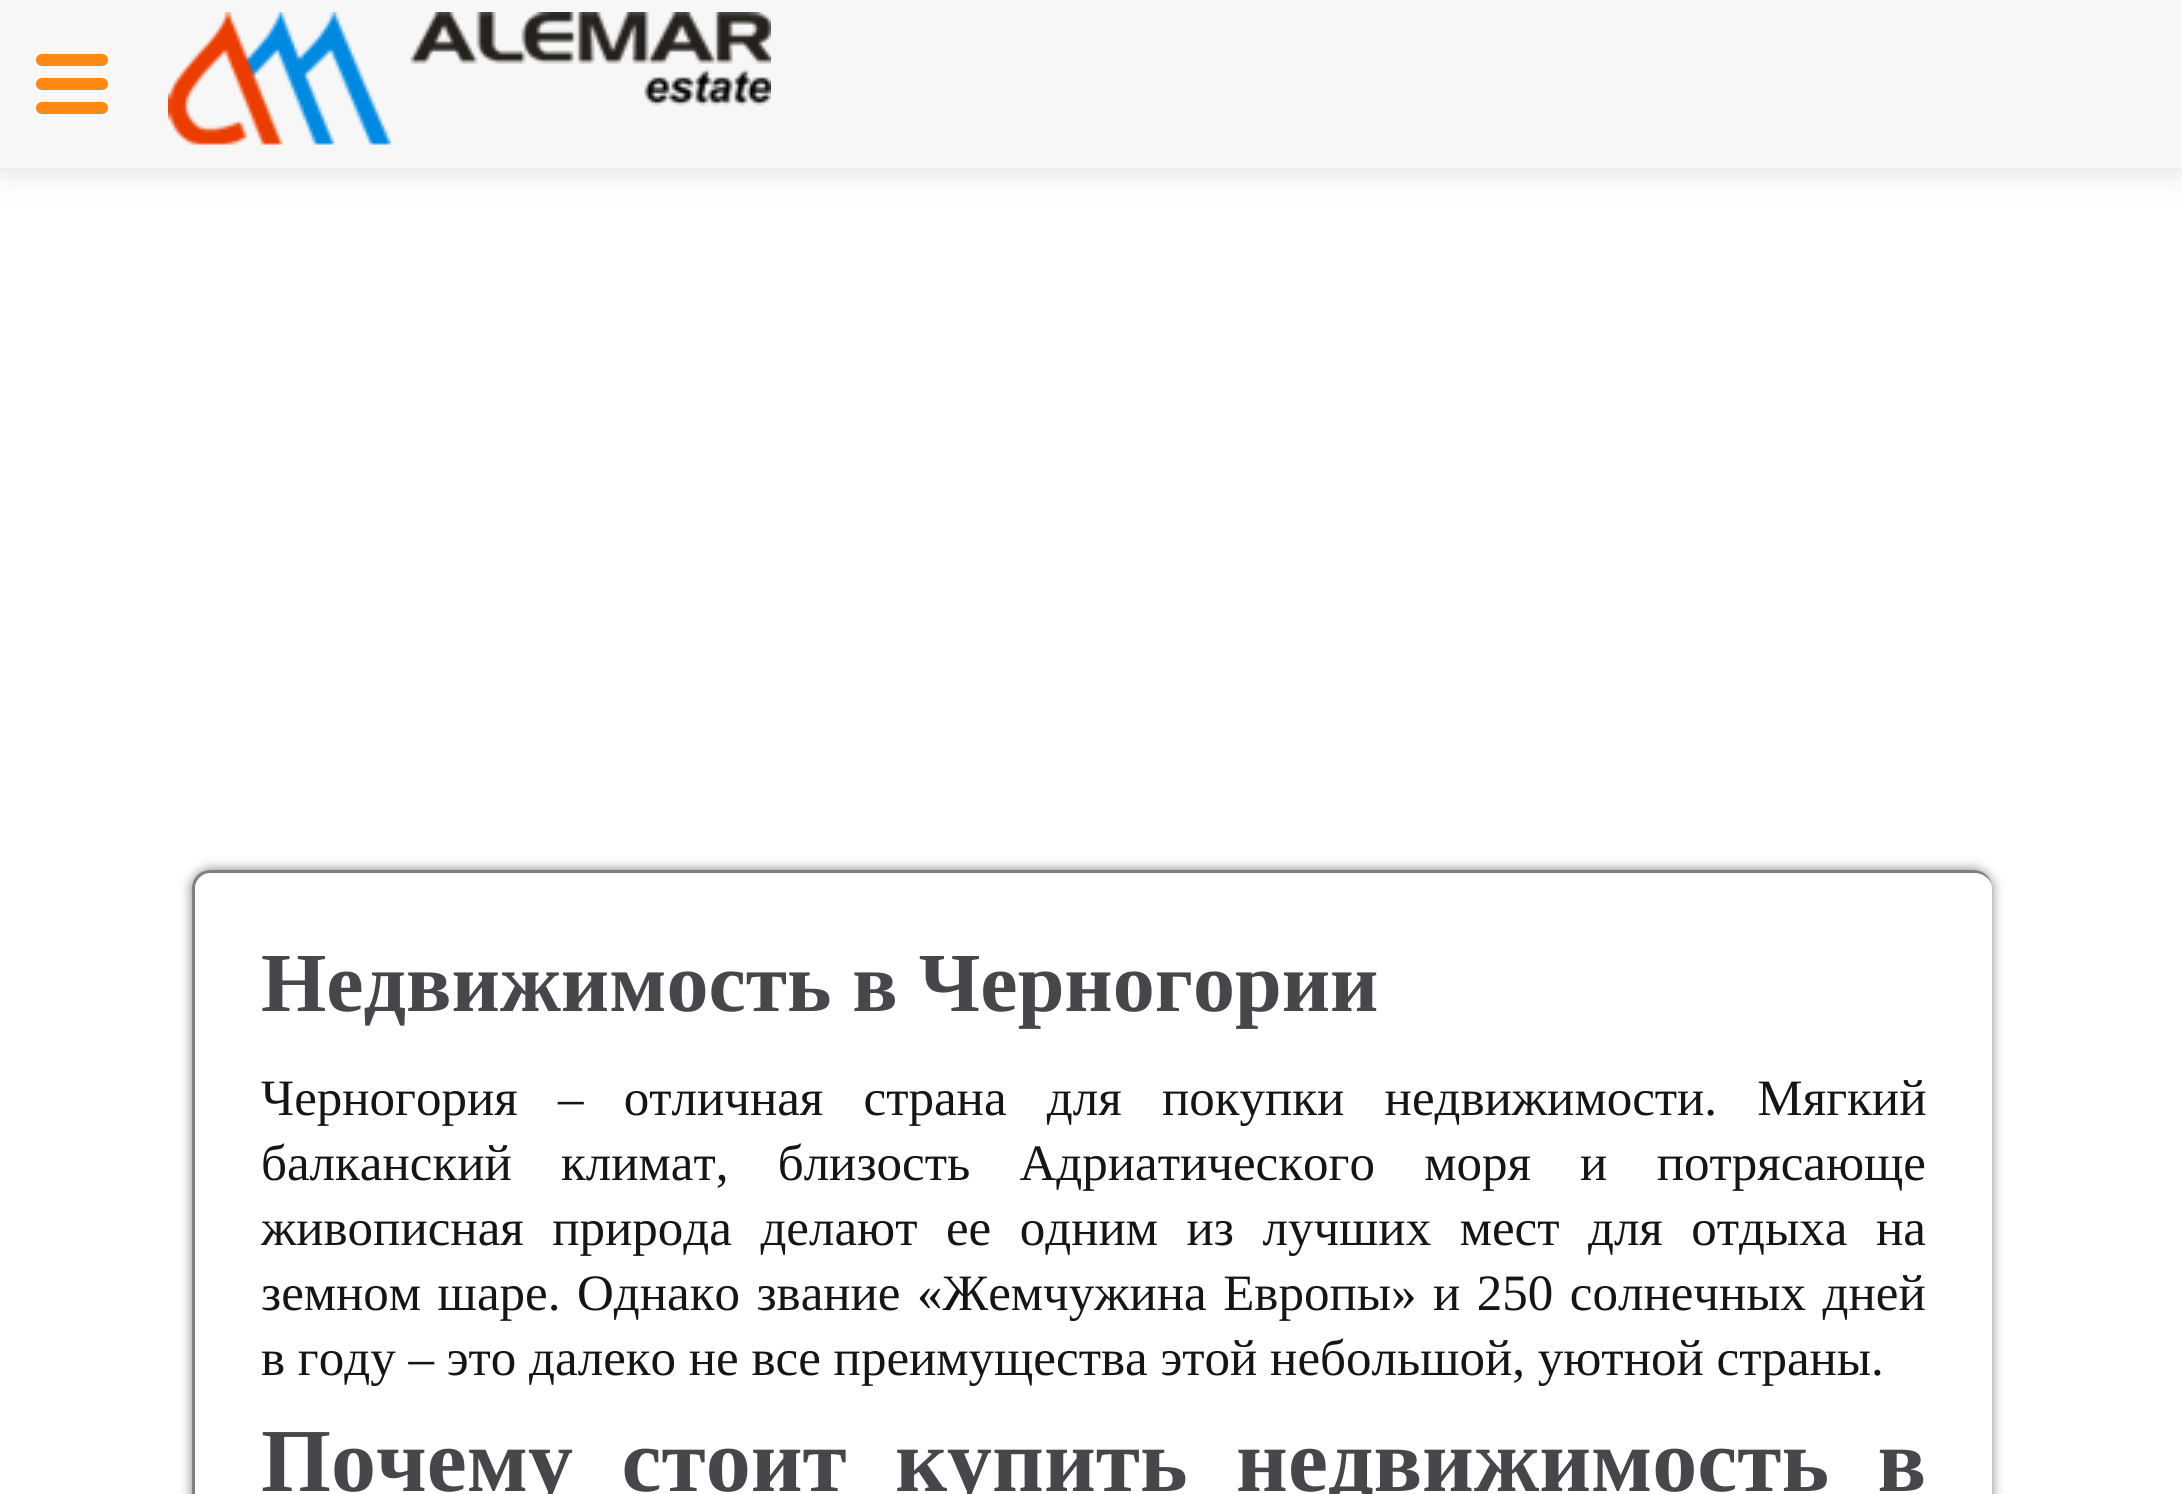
import math
import cairo


def use_color(cr, r, g, b):
  cr.set_source_rgb(r / 255, g / 255, b / 255)

def text(cr, x, y, s, family, size, color, bold=False, italic=False):
  cr.select_font_face(family, cairo.FONT_SLANT_ITALIC if italic else cairo.FONT_SLANT_NORMAL, cairo.FONT_WEIGHT_BOLD if bold else cairo.FONT_WEIGHT_NORMAL)
  cr.set_font_size(size)
  use_color(cr, *color)
  cr.move_to(x, y)
  cr.show_text(s)

def spaced_text(cr, x, y, s, letter, word):
  cr.move_to(x, y)
  for ch in s:
    cr.show_text(ch)
    cr.rel_move_to(letter + word * (ch == ' '), 0)

def box(cr, x, y, w, h, *color):
  use_color(cr, *color)
  cr.rectangle(x, y, w, h)
  cr.fill()

def round_rect(cr, x, y, w, h, r):
  cr.new_sub_path()
  for i, (u, v) in enumerate([(x + w - r, y + h - r), (x + r, y + h - r), (x + r, y + r), (x + w - r, y + r)]):
    cr.arc(u, v, r, i * math.pi / 2, (i + 1) * math.pi / 2)
  cr.close_path()

def shadow(cr, x, y, w, h, r, blur, alpha):
  cr.push_group_with_content(cairo.CONTENT_ALPHA)
  cr.set_operator(cairo.OPERATOR_SOURCE)
  for i in range(15, -16, -2):
    e = blur * i / 6
    if min(w, h) + 2 * e > 0:
      cr.set_source_rgba(0, 0, 0, alpha * math.erfc((i - 1) / 8.5) / 2)
      round_rect(cr, x - e, y - e, w + 2 * e, h + 2 * e, max(0, min(r + e + blur * .6, min(w, h) / 2 + e)))
      cr.fill()
  cr.mask(cr.pop_group())

def picture(cr, path, x, y, w, h):
  cr.save()
  cr.set_source_surface(cairo.ImageSurface.create_from_png(path), x, y)
  cr.rectangle(x, y, w, h)
  cr.fill()
  cr.restore()

def draw(cr):
  use_color(cr, 255, 255, 255)
  cr.paint()
  use_color(cr, 0, 0, 0)
  shadow(cr, 3, 3, 2178, 162, 0, 19.5, 0.17)
  box(cr, 0, 0, 2182, 168, 247, 247, 247)
  use_color(cr, 252, 136, 22)
  round_rect(cr, 36, 78, 72, 12, 6)
  cr.fill()
  round_rect(cr, 36, 54, 72, 12, 6)
  cr.fill()
  round_rect(cr, 36, 102, 72, 12, 6)
  cr.fill()
  picture(cr, "img_01.png", 168, 12, 603, 133)
  use_color(cr, 0, 0, 0)
  shadow(cr, 192, 870, 1800, 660, 18, 6, 0.5)
  use_color(cr, 255, 255, 255)
  round_rect(cr, 192, 870, 1800, 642, 18)
  cr.fill()
  use_color(cr, 128, 128, 128)
  cr.set_fill_rule(cairo.FILL_RULE_EVEN_ODD)
  cr.new_path()
  cr.move_to(210, 870)
  cr.line_to(1974, 870)
  cr.curve_to(1984, 870, 1992, 878, 1992, 888)
  cr.line_to(1992, 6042)
  cr.curve_to(1992, 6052, 1984, 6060, 1974, 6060)
  cr.line_to(210, 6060)
  cr.curve_to(200, 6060, 192, 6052, 192, 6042)
  cr.line_to(192, 888)
  cr.curve_to(192, 878, 200, 870, 210, 870)
  cr.close_path()
  cr.move_to(210, 873)
  cr.line_to(1974, 873)
  cr.curve_to(1984, 873, 1992, 880, 1992, 888)
  cr.line_to(1992, 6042)
  cr.curve_to(1992, 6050, 1984, 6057, 1974, 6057)
  cr.line_to(210, 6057)
  cr.curve_to(202, 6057, 195, 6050, 195, 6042)
  cr.line_to(195, 888)
  cr.curve_to(195, 880, 202, 873, 210, 873)
  cr.close_path()
  cr.fill()
  text(cr, 261, 1011, "Недвижимость в Черногории", "Liberation Serif", 84, (70, 71, 74), bold=True)
  cr.select_font_face("Liberation Serif")
  cr.set_font_size(51)
  use_color(cr, 21, 21, 21)
  spaced_text(cr, 261, 1115, "Черногория – отличная страна для покупки недвижимости. Мягкий", 0, 27.5)
  spaced_text(cr, 261, 1180, "балканский климат, близость Адриатического моря и потрясающе", 0, 36.5)
  spaced_text(cr, 261, 1245, "живописная природа делают ее одним из лучших мест для отдыха на", 0, 15.75)
  spaced_text(cr, 261, 1310, "земном шаре. Однако звание «Жемчужина Европы» и 250 солнечных дней", 0, 3.75)
  text(cr, 261, 1375, "в году – это далеко не все преимущества этой небольшой, уютной страны.", "Liberation Serif", 51, (21, 21, 21))
  cr.select_font_face("Liberation Serif", cairo.FONT_SLANT_NORMAL, cairo.FONT_WEIGHT_BOLD)
  cr.set_font_size(90)
  use_color(cr, 70, 71, 74)
  spaced_text(cr, 261, 1491, "Почему стоит купить недвижимость в", 0, 26)


surface = cairo.ImageSurface(cairo.FORMAT_RGB24, 2182, 1494)
cr = cairo.Context(surface)
options = cairo.FontOptions()
options.set_hint_metrics(cairo.HINT_METRICS_OFF)
options.set_hint_style(cairo.HINT_STYLE_NONE)
cr.set_font_options(options)
cr.set_miter_limit(4)
draw(cr)
surface.write_to_png("out.png")
